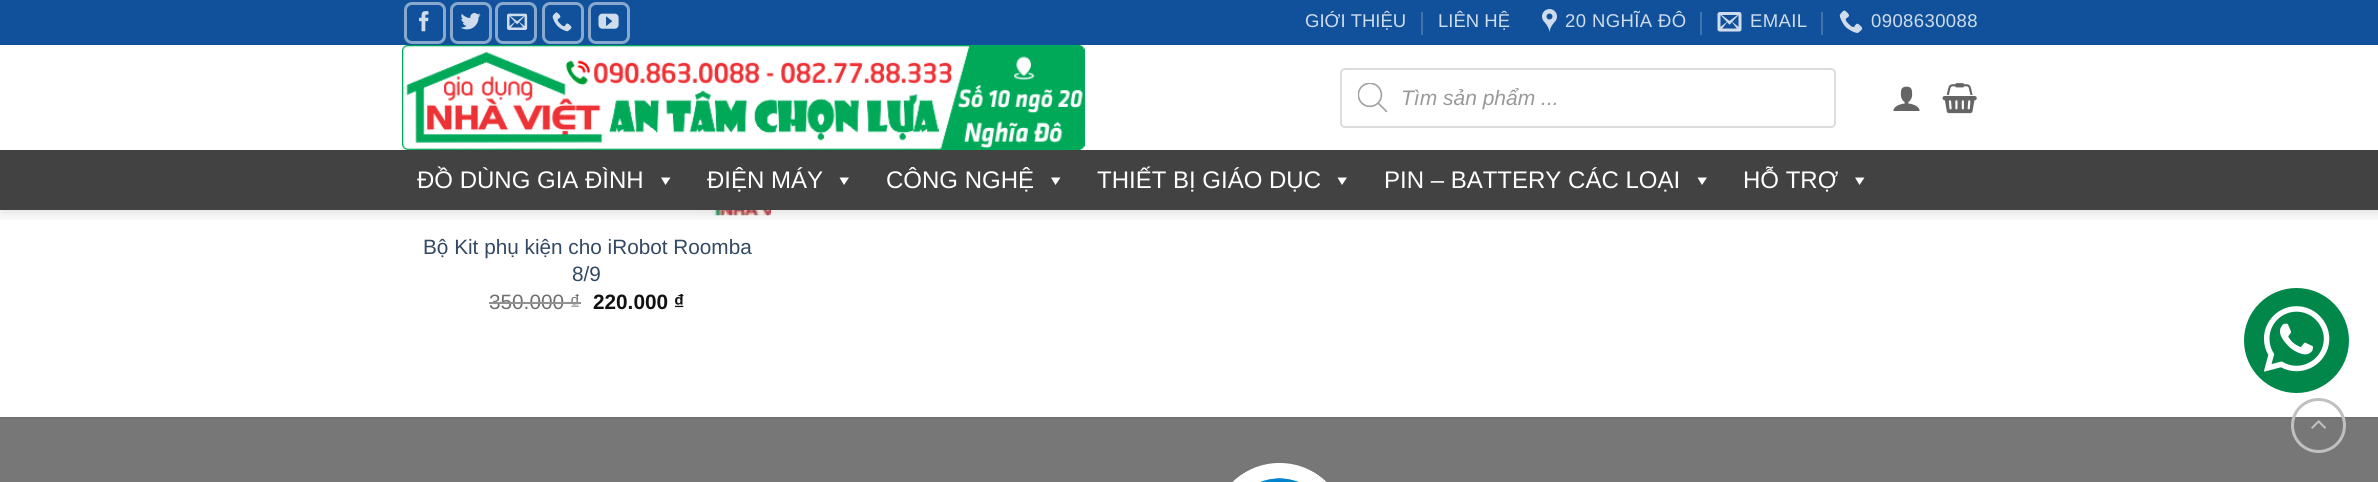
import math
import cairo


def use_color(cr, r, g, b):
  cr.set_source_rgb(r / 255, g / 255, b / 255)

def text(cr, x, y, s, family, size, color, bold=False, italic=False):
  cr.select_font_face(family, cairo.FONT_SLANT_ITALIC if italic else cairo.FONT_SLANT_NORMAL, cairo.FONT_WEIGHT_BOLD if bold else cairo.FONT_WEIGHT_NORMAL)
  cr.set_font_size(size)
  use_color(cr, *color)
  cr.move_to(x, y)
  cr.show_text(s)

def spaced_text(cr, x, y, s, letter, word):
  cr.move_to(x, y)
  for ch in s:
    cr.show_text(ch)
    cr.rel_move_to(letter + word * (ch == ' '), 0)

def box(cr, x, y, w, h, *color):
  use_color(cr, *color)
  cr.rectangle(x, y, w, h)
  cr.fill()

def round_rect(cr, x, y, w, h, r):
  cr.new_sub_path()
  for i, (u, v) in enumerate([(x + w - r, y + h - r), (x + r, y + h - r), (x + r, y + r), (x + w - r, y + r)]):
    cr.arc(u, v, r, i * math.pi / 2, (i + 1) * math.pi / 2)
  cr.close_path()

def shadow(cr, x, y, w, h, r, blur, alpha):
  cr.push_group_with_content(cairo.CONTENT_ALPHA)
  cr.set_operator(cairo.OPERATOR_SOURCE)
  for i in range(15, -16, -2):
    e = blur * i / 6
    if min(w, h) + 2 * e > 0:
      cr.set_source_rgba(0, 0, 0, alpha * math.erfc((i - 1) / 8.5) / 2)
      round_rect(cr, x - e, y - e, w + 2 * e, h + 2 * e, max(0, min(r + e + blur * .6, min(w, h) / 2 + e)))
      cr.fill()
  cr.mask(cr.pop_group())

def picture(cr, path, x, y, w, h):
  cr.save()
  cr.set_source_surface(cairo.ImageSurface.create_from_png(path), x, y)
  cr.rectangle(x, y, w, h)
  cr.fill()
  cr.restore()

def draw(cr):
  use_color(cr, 255, 255, 255)
  cr.paint()
  picture(cr, "img_13.png", 402, 210, 369, 6)
  cr.save()
  cr.rectangle(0, 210, 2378, 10)
  cr.clip()
  use_color(cr, 0, 0, 0)
  shadow(cr, 2, 2, 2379, 210, 0, 7.5, 0.15)
  cr.restore()
  box(cr, 0, 0, 2378, 45, 17, 81, 155)
  round_rect(cr, 405.5, 3.5, 39, 39, 6.5)
  use_color(cr, 136, 168, 205)
  cr.set_line_width(3)
  cr.stroke()
  picture(cr, "img_01.png", 419, 11, 10, 21)
  round_rect(cr, 451.5, 3.5, 39, 39, 6.5)
  cr.stroke()
  picture(cr, "img_02.png", 460, 13, 21, 17)
  round_rect(cr, 496.5, 3.5, 39, 39, 6.5)
  cr.stroke()
  picture(cr, "img_03.png", 507, 13, 21, 17)
  round_rect(cr, 543.5, 3.5, 39, 39, 6.5)
  cr.stroke()
  picture(cr, "img_04.png", 552, 12, 20, 20)
  round_rect(cr, 589.5, 3.5, 39, 39, 6.5)
  cr.stroke()
  picture(cr, "img_05.png", 598, 13, 21, 16)
  box(cr, 1421, 12, 2, 23, 65, 116, 175)
  picture(cr, "img_06.png", 1542, 9, 15, 24)
  box(cr, 1700, 12, 2, 23, 65, 116, 175)
  picture(cr, "img_07.png", 1717, 12, 25, 20)
  box(cr, 1821, 12, 2, 23, 65, 116, 175)
  picture(cr, "img_08.png", 1839, 10, 24, 23)
  picture(cr, "img_09.png", 402, 45, 683, 105)
  round_rect(cr, 1341, 69, 494, 58, 4)
  use_color(cr, 221, 221, 221)
  cr.set_line_width(2)
  cr.stroke()
  picture(cr, "img_10.png", 1358, 83, 30, 30)
  picture(cr, "img_11.png", 1893, 86, 27, 25)
  picture(cr, "img_12.png", 1942, 83, 35, 31)
  box(cr, 0, 150, 2378, 60, 66, 66, 66)
  use_color(cr, 255, 255, 255)
  cr.new_path()
  cr.move_to(670.5, 177.5)
  cr.line_to(665.5, 185)
  cr.line_to(661, 177.5)
  cr.close_path()
  cr.fill()
  cr.new_path()
  cr.move_to(849, 177.5)
  cr.line_to(844, 185)
  cr.line_to(839.5, 177.5)
  cr.close_path()
  cr.fill()
  cr.new_path()
  cr.move_to(1060.5, 177.5)
  cr.line_to(1055.5, 185)
  cr.line_to(1051, 177.5)
  cr.close_path()
  cr.fill()
  cr.new_path()
  cr.move_to(1347, 177.5)
  cr.line_to(1342, 185)
  cr.line_to(1337.5, 177.5)
  cr.close_path()
  cr.fill()
  cr.new_path()
  cr.move_to(1707, 177.5)
  cr.line_to(1702, 185)
  cr.line_to(1697.5, 177.5)
  cr.close_path()
  cr.fill()
  cr.new_path()
  cr.move_to(1864.5, 177.5)
  cr.line_to(1859.5, 185)
  cr.line_to(1855, 177.5)
  cr.close_path()
  cr.fill()
  box(cr, 0, 419, 2378, 63, 119, 119, 119)
  box(cr, 0, 417, 2378, 2, 113, 113, 113)
  cr.arc(2318.5, 425.5, 26, 0, 2 * math.pi)
  use_color(cr, 192, 192, 192)
  cr.set_line_width(3)
  cr.stroke()
  picture(cr, "img_14.png", 2311, 420, 15, 9)
  picture(cr, "img_15.png", 1232, 463, 95, 19)
  use_color(cr, 0, 135, 73)
  cr.arc(2296.5, 340.5, 52.5, 0, 2 * math.pi)
  cr.fill()
  picture(cr, "img_16.png", 2264, 306, 66, 66)
  text(cr, 1305, 27, "GIỚI THIỆU", "Liberation Sans", 18.5, (207, 220, 235))
  text(cr, 1438, 27, "LIÊN HỆ", "Liberation Sans", 18.5, (207, 220, 235))
  spaced_text(cr, 1565, 27, "20 NGHĨA ĐÔ", 0.4, 0)
  spaced_text(cr, 1750, 27, "EMAIL", 0.4, 0)
  spaced_text(cr, 1871, 27, "0908630088", 0.4, 0)
  text(cr, 1401, 105, "Tìm sản phẩm ...", "Liberation Sans", 21, (153, 153, 153), italic=True)
  text(cr, 417, 188, "ĐỒ DÙNG GIA ĐÌNH", "Liberation Sans", 24, (255, 255, 255))
  text(cr, 707, 188, "ĐIỆN MÁY", "Liberation Sans", 24, (255, 255, 255))
  text(cr, 886, 188, "CÔNG NGHỆ", "Liberation Sans", 24, (255, 255, 255))
  text(cr, 1097, 188, "THIẾT BỊ GIÁO DỤC", "Liberation Sans", 24, (255, 255, 255))
  text(cr, 1384, 188, "PIN – BATTERY CÁC LOẠI", "Liberation Sans", 24, (255, 255, 255))
  text(cr, 1743, 188, "HỖ TRỢ", "Liberation Sans", 24, (255, 255, 255))
  text(cr, 423, 254, "Bộ Kit phụ kiện cho iRobot Roomba", "Liberation Sans", 20.75, (51, 72, 98))
  text(cr, 572, 281, "8/9", "Liberation Sans", 20.75, (51, 72, 98))
  text(cr, 489, 309, "350.000 ₫", "Liberation Sans", 20.75, (112, 112, 112))
  box(cr, 489, 302, 92, 2, 146, 146, 146)
  text(cr, 593, 309, "220.000 ₫", "Liberation Sans", 20.75, (17, 17, 17), bold=True)


surface = cairo.ImageSurface(cairo.FORMAT_RGB24, 2378, 482)
cr = cairo.Context(surface)
options = cairo.FontOptions()
options.set_hint_metrics(cairo.HINT_METRICS_OFF)
options.set_hint_style(cairo.HINT_STYLE_NONE)
cr.set_font_options(options)
cr.set_miter_limit(4)
draw(cr)
surface.write_to_png("out.png")
